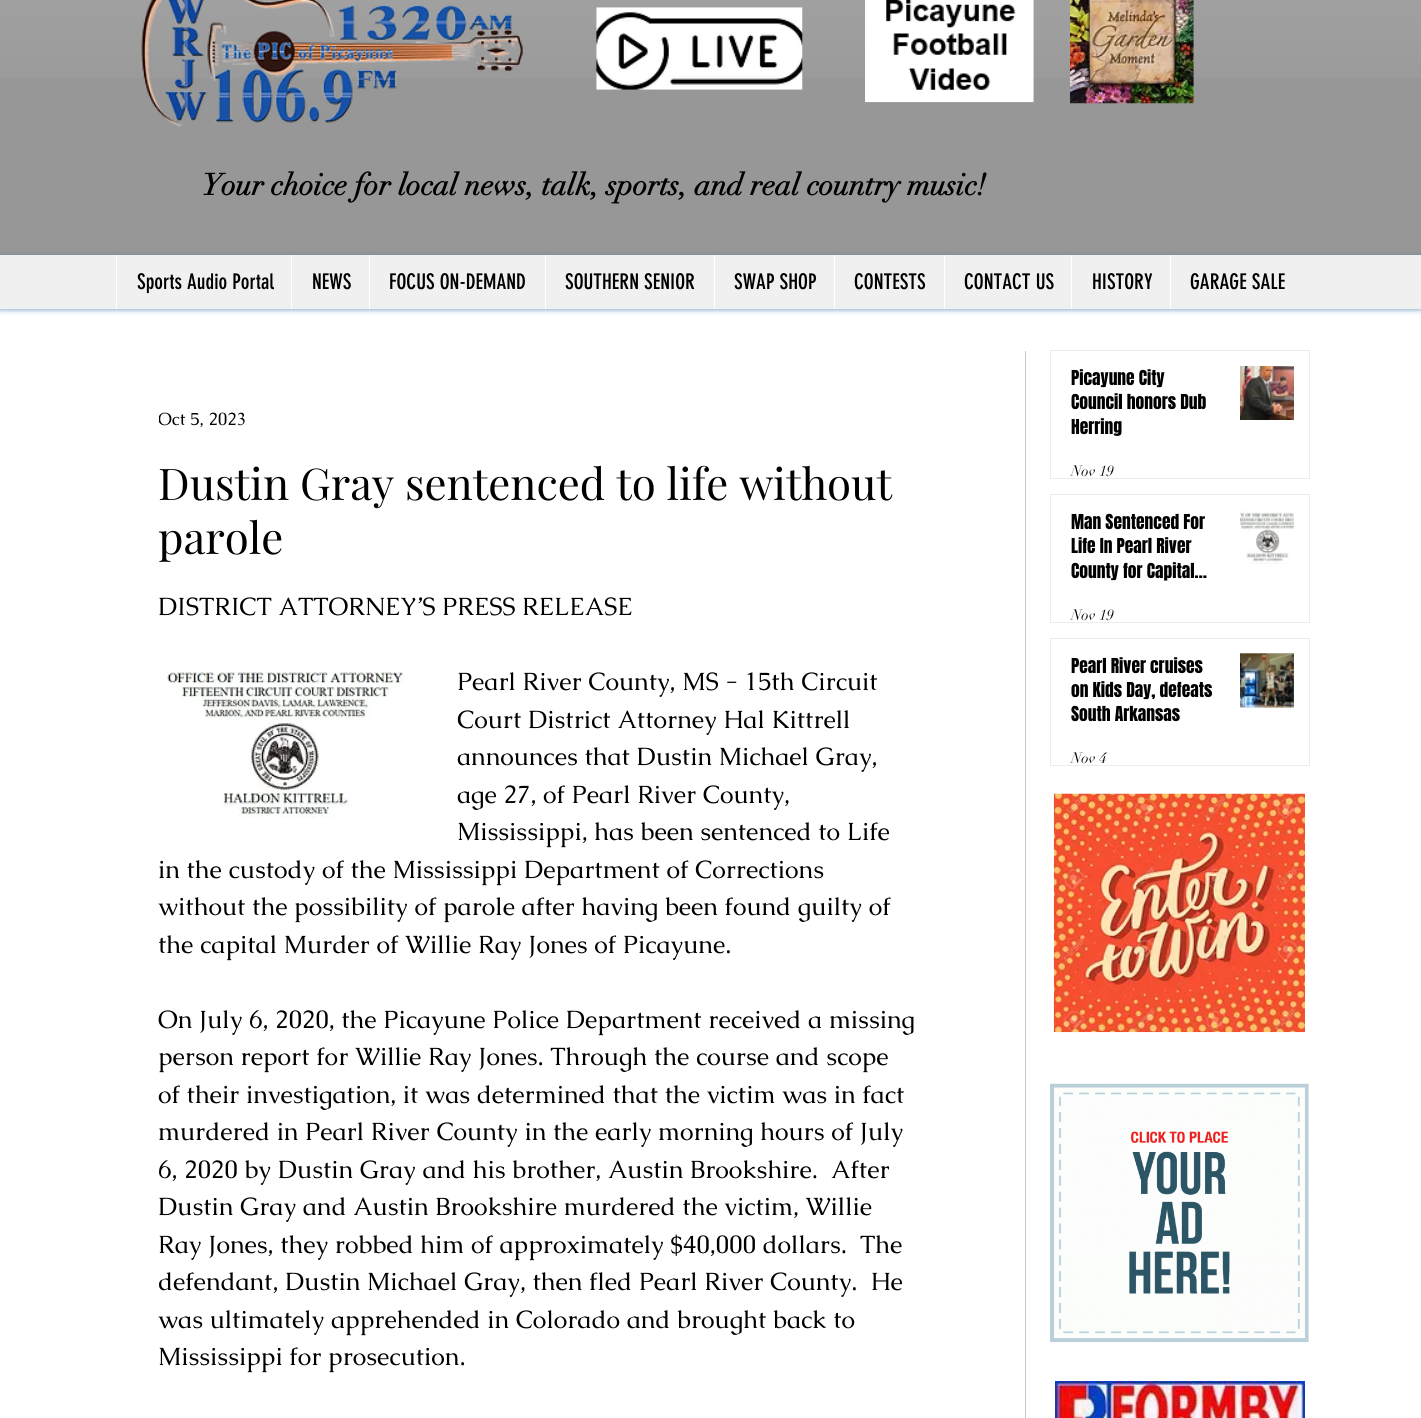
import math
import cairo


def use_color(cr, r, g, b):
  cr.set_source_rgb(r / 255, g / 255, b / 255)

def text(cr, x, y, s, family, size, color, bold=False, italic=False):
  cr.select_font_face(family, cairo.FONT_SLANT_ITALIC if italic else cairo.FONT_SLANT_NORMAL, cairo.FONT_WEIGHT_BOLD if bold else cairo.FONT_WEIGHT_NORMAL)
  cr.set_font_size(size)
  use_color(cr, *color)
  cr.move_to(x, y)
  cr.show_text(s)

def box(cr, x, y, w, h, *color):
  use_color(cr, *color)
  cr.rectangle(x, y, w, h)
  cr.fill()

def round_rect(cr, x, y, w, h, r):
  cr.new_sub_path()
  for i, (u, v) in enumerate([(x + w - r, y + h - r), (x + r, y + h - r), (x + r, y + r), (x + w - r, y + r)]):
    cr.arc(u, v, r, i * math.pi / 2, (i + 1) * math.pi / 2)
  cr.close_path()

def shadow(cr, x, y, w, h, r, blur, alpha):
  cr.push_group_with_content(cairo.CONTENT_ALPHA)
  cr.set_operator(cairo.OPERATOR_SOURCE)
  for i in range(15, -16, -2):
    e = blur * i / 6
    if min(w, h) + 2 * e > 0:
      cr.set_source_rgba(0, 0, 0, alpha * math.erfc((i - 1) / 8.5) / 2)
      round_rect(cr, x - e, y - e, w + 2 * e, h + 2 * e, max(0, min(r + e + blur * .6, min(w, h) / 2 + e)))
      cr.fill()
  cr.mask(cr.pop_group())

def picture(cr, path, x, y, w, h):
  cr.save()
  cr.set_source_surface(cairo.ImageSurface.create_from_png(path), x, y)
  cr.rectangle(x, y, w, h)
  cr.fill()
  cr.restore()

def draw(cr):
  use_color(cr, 255, 255, 255)
  cr.paint()
  box(cr, 0, 0, 1421, 255, 151, 151, 151)
  picture(cr, "img_01.png", 0, 0, 1421, 78)
  picture(cr, "img_02.png", 141, 0, 383, 127)
  picture(cr, "img_03.png", 596, 7, 207, 83)
  picture(cr, "img_04.png", 865, 0, 169, 103)
  picture(cr, "img_05.png", 1070, 0, 124, 104)
  use_color(cr, 43, 108, 163)
  shadow(cr, 0, 256, 1421, 54, 0, 2.5, 0.6)
  box(cr, 0, 255, 1421, 54, 240, 240, 240)
  box(cr, 116, 255, 1, 54, 255, 255, 255)
  box(cr, 291, 255, 1, 54, 255, 255, 255)
  box(cr, 369, 255, 1, 54, 255, 255, 255)
  box(cr, 545, 255, 1, 54, 255, 255, 255)
  box(cr, 714, 255, 1, 54, 255, 255, 255)
  box(cr, 834, 255, 1, 54, 255, 255, 255)
  box(cr, 944, 255, 1, 54, 255, 255, 255)
  box(cr, 1071, 255, 1, 54, 255, 255, 255)
  box(cr, 1170, 255, 1, 54, 255, 255, 255)
  picture(cr, "img_06.png", 167, 672, 237, 146)
  box(cr, 1025, 351, 1, 1067, 199, 199, 199)
  cr.rectangle(1050.5, 350.5, 259, 128)
  use_color(cr, 236, 236, 236)
  cr.set_line_width(1)
  cr.stroke()
  picture(cr, "img_07.png", 1240, 366, 54, 54)
  cr.rectangle(1050.5, 494.5, 259, 128)
  cr.stroke()
  picture(cr, "img_08.png", 1240, 510, 54, 54)
  picture(cr, "img_09.png", 1240, 510, 54, 53)
  cr.rectangle(1050.5, 638.5, 259, 127)
  cr.stroke()
  picture(cr, "img_10.png", 1240, 653, 54, 55)
  picture(cr, "img_11.png", 1240, 653, 54, 55)
  picture(cr, "img_12.png", 1053, 793, 252, 240)
  picture(cr, "img_13.png", 1050, 1083, 259, 260)
  picture(cr, "img_14.png", 1055, 1381, 250, 37)
  text(cr, 202, 195, "Your choice for local news, talk, sports, and real country music!", "didot", 30, (0, 0, 0), bold=True)
  text(cr, 137, 289, "Sports Audio Portal", "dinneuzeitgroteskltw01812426", 21.25, (0, 0, 0))
  text(cr, 312, 289, "NEWS", "dinneuzeitgroteskltw01812426", 21.25, (0, 0, 0))
  text(cr, 389, 289, "FOCUS ON-DEMAND", "dinneuzeitgroteskltw01812426", 21.25, (0, 0, 0))
  text(cr, 565, 289, "SOUTHERN SENIOR", "dinneuzeitgroteskltw01812426", 21.25, (0, 0, 0))
  text(cr, 734, 289, "SWAP SHOP", "dinneuzeitgroteskltw01812426", 21.25, (0, 0, 0))
  text(cr, 854, 289, "CONTESTS", "dinneuzeitgroteskltw01812426", 21.25, (0, 0, 0))
  text(cr, 964, 289, "CONTACT US", "dinneuzeitgroteskltw01812426", 21.25, (0, 0, 0))
  text(cr, 1092, 289, "HISTORY", "dinneuzeitgroteskltw01812426", 21.25, (0, 0, 0))
  text(cr, 1190, 289, "GARAGE SALE", "dinneuzeitgroteskltw01812426", 21.25, (0, 0, 0))
  cr.save()
  cr.rectangle(159, 406, 87, 27)
  cr.clip()
  text(cr, 158, 425, "Oct 5, 2023", "Caudex", 17.5, (0, 0, 0))
  cr.restore()
  text(cr, 158, 500, "Dustin Gray sentenced to life without", "Playfair Display", 43.75, (0, 0, 0))
  text(cr, 158, 554, "parole", "Playfair Display", 43.75, (0, 0, 0))
  text(cr, 158, 615, "DISTRICT ATTORNEY’S PRESS RELEASE", "Caudex", 25, (0, 0, 0))
  text(cr, 457, 690, "Pearl River County, MS - 15th Circuit", "Caudex", 25, (0, 0, 0))
  text(cr, 457, 728, "Court District Attorney Hal Kittrell", "Caudex", 25, (0, 0, 0))
  text(cr, 457, 765, "announces that Dustin Michael Gray,", "Caudex", 25, (0, 0, 0))
  text(cr, 457, 803, "age 27, of Pearl River County,", "Caudex", 25, (0, 0, 0))
  text(cr, 457, 840, "Mississippi, has been sentenced to Life", "Caudex", 25, (0, 0, 0))
  text(cr, 158, 878, "in the custody of the Mississippi Department of Corrections", "Caudex", 25, (0, 0, 0))
  text(cr, 158, 915, "without the possibility of parole after having been found guilty of", "Caudex", 25, (0, 0, 0))
  text(cr, 158, 953, "the capital Murder of Willie Ray Jones of Picayune.", "Caudex", 25, (0, 0, 0))
  text(cr, 158, 1028, "On July 6, 2020, the Picayune Police Department received a missing", "Caudex", 25, (0, 0, 0))
  text(cr, 158, 1065, "person report for Willie Ray Jones. Through the course and scope", "Caudex", 25, (0, 0, 0))
  text(cr, 158, 1103, "of their investigation, it was determined that the victim was in fact", "Caudex", 25, (0, 0, 0))
  text(cr, 158, 1140, "murdered in Pearl River County in the early morning hours of July", "Caudex", 25, (0, 0, 0))
  text(cr, 158, 1178, "6, 2020 by Dustin Gray and his brother, Austin Brookshire.  After", "Caudex", 25, (0, 0, 0))
  text(cr, 158, 1215, "Dustin Gray and Austin Brookshire murdered the victim, Willie", "Caudex", 25, (0, 0, 0))
  text(cr, 158, 1253, "Ray Jones, they robbed him of approximately $40,000 dollars.  The", "Caudex", 25, (0, 0, 0))
  text(cr, 158, 1290, "defendant, Dustin Michael Gray, then fled Pearl River County.  He", "Caudex", 25, (0, 0, 0))
  text(cr, 158, 1328, "was ultimately apprehended in Colorado and brought back to", "Caudex", 25, (0, 0, 0))
  text(cr, 158, 1365, "Mississippi for prosecution.", "Caudex", 25, (0, 0, 0))
  text(cr, 1071, 385, "Picayune City", "Anton", 17.5, (0, 0, 0))
  text(cr, 1071, 409, "Council honors Dub", "Anton", 17.5, (0, 0, 0))
  text(cr, 1071, 434, "Herring", "Anton", 17.5, (0, 0, 0))
  text(cr, 1071, 476, "Nov 19", "didot", 15, (0, 0, 0))
  text(cr, 1071, 529, "Man Sentenced For", "Anton", 17.5, (0, 0, 0))
  text(cr, 1071, 553, "Life In Pearl River", "Anton", 17.5, (0, 0, 0))
  text(cr, 1071, 578, "County for Capital…", "Anton", 17.5, (0, 0, 0))
  text(cr, 1071, 620, "Nov 19", "didot", 15, (0, 0, 0))
  text(cr, 1071, 673, "Pearl River cruises", "Anton", 17.5, (0, 0, 0))
  text(cr, 1071, 697, "on Kids Day, defeats", "Anton", 17.5, (0, 0, 0))
  text(cr, 1071, 721, "South Arkansas", "Anton", 17.5, (0, 0, 0))
  text(cr, 1071, 763, "Nov 4", "didot", 15, (0, 0, 0))


surface = cairo.ImageSurface(cairo.FORMAT_RGB24, 1421, 1418)
cr = cairo.Context(surface)
options = cairo.FontOptions()
options.set_hint_metrics(cairo.HINT_METRICS_OFF)
options.set_hint_style(cairo.HINT_STYLE_NONE)
cr.set_font_options(options)
cr.set_miter_limit(4)
draw(cr)
surface.write_to_png("out.png")
